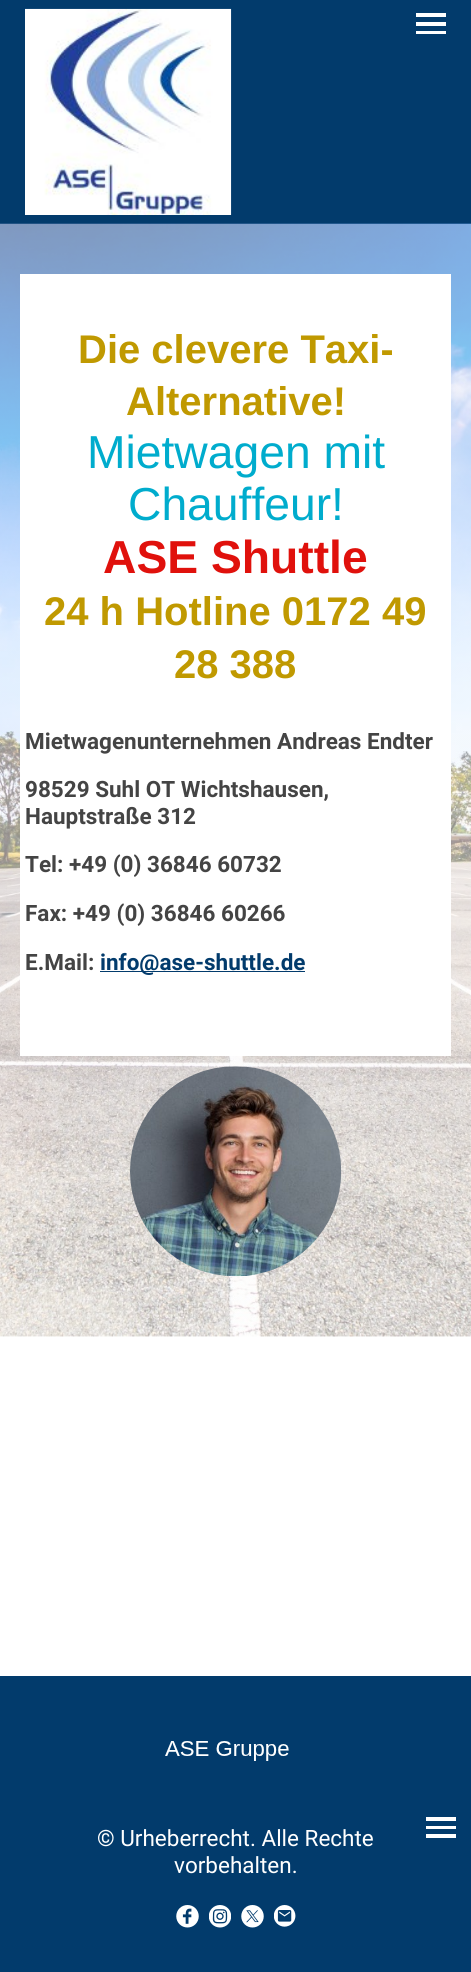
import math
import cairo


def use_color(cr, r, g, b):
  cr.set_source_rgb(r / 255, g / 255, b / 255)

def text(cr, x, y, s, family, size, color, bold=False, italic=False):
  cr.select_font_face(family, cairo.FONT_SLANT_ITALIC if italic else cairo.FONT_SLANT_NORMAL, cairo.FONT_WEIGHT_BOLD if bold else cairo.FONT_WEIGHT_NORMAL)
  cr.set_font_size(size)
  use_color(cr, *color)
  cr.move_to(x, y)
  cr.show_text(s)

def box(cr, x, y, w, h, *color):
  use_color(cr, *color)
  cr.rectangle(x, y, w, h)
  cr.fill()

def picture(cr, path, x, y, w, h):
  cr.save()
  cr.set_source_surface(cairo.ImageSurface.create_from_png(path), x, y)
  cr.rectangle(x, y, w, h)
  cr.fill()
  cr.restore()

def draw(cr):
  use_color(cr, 255, 255, 255)
  cr.paint()
  box(cr, 0, 0, 471, 224, 2, 59, 108)
  picture(cr, "img_01.png", 25, 8, 207, 207)
  box(cr, 416, 13, 30, 4, 255, 255, 255)
  box(cr, 416, 22, 30, 4, 255, 255, 255)
  box(cr, 416, 31, 30, 3, 255, 255, 255)
  picture(cr, "img_02.png", 0, 223, 471, 1114)
  box(cr, 20, 274, 431, 782, 255, 255, 255)
  box(cr, 100, 971, 205, 1, 2, 59, 108)
  picture(cr, "img_03.png", 130, 1066, 212, 211)
  box(cr, 0, 1676, 471, 296, 2, 59, 108)
  picture(cr, "img_04.png", 165, 1741, 124, 20)
  box(cr, 426, 1817, 30, 4, 255, 255, 255)
  box(cr, 426, 1826, 30, 3, 255, 255, 255)
  box(cr, 426, 1834, 30, 4, 255, 255, 255)
  picture(cr, "img_05.png", 176, 1905, 23, 23)
  picture(cr, "img_06.png", 209, 1905, 22, 23)
  picture(cr, "img_07.png", 241, 1905, 23, 23)
  picture(cr, "img_08.png", 274, 1905, 22, 22)
  text(cr, 78, 363, "Die clevere Taxi-", "Liberation Sans", 40, (192, 153, 0), bold=True)
  text(cr, 126, 415, "Alternative!", "Liberation Sans", 40, (192, 153, 0), bold=True)
  text(cr, 87, 468, "Mietwagen mit", "Liberation Sans", 46.25, (0, 172, 205))
  text(cr, 128, 520, "Chauffeur!", "Liberation Sans", 46.25, (0, 172, 205))
  text(cr, 103, 573, "ASE Shuttle", "Liberation Sans", 46.25, (224, 17, 12), bold=True)
  text(cr, 44, 625, "24 h Hotline 0172 49", "Liberation Sans", 40, (192, 153, 0), bold=True)
  text(cr, 174, 678, "28 388", "Liberation Sans", 40, (192, 153, 0), bold=True)
  text(cr, 25, 749, "Mietwagenunternehmen Andreas Endter", "Roboto", 22.5, (68, 68, 68), bold=True)
  text(cr, 25, 797, "98529 Suhl OT Wichtshausen,", "Roboto", 22.5, (68, 68, 68), bold=True)
  text(cr, 25, 824, "Hauptstraße 312", "Roboto", 22.5, (68, 68, 68), bold=True)
  text(cr, 25, 872, "Tel: +49 (0) 36846 60732", "Roboto", 22.5, (68, 68, 68), bold=True)
  text(cr, 25, 921, "Fax: +49 (0) 36846 60266", "Roboto", 22.5, (68, 68, 68), bold=True)
  text(cr, 25, 970, "E.Mail:", "Roboto", 22.5, (68, 68, 68), bold=True)
  text(cr, 100, 970, "info@ase-shuttle.de", "Roboto", 22.5, (2, 59, 108), bold=True)
  text(cr, 97, 1846, "© Urheberrecht. Alle Rechte", "Roboto", 22.5, (255, 255, 255))
  text(cr, 174, 1873, "vorbehalten.", "Roboto", 22.5, (255, 255, 255))


surface = cairo.ImageSurface(cairo.FORMAT_RGB24, 471, 1972)
cr = cairo.Context(surface)
options = cairo.FontOptions()
options.set_hint_metrics(cairo.HINT_METRICS_OFF)
options.set_hint_style(cairo.HINT_STYLE_NONE)
cr.set_font_options(options)
cr.set_miter_limit(4)
draw(cr)
surface.write_to_png("out.png")
